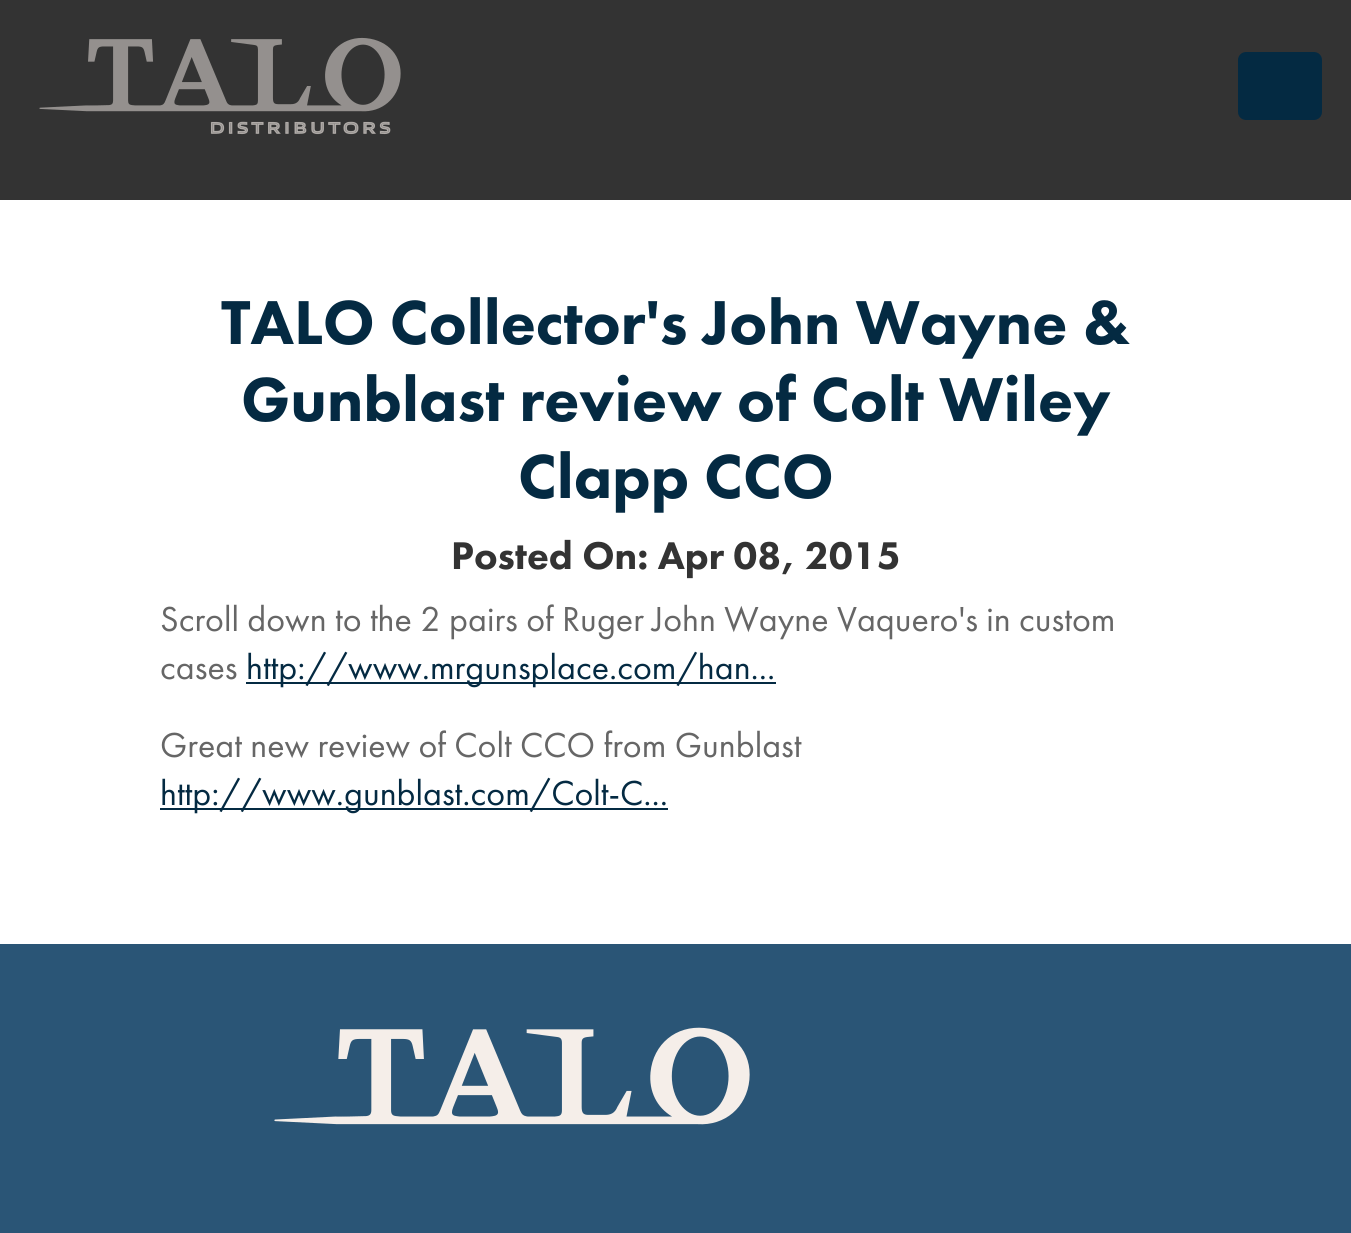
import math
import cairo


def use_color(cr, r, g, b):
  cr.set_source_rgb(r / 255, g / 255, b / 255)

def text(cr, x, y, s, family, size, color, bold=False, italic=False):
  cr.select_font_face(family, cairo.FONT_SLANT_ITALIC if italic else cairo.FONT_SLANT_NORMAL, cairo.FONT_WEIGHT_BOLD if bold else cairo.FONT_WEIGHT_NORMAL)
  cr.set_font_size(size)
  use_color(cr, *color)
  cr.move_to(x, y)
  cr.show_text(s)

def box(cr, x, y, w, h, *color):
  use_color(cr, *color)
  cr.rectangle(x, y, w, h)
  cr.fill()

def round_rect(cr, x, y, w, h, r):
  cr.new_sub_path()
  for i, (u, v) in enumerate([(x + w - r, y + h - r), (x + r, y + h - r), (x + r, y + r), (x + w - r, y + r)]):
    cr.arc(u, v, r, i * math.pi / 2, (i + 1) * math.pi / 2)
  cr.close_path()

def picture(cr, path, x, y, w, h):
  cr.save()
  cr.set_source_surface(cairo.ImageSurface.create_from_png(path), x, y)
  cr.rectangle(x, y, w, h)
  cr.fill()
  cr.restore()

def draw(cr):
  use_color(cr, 255, 255, 255)
  cr.paint()
  box(cr, 0, 0, 1351, 200, 51, 51, 51)
  picture(cr, "img_01.png", 39, 37, 362, 98)
  use_color(cr, 4, 42, 66)
  round_rect(cr, 1238, 52, 84, 68, 8)
  cr.fill()
  box(cr, 246, 682, 530, 2, 4, 42, 66)
  box(cr, 160, 808, 508, 2, 4, 42, 66)
  box(cr, 0, 944, 1351, 289, 42, 85, 118)
  picture(cr, "img_02.png", 274, 1027, 476, 98)
  text(cr, 221, 344, "TALO Collector's John Wayne &", "Futura PT Black", 64.25, (4, 42, 66))
  text(cr, 241, 421, "Gunblast review of Colt Wiley", "Futura PT Black", 64.25, (4, 42, 66))
  text(cr, 518, 498, "Clapp CCO", "Futura PT Black", 64.25, (4, 42, 66))
  text(cr, 451, 569, "Posted On: Apr 08, 2015", "Futura PT Black", 40, (51, 51, 51))
  text(cr, 160, 631, "Scroll down to the 2 pairs of Ruger John Wayne Vaquero's in custom", "Futura PT", 36, (102, 102, 102))
  text(cr, 160, 679, "cases", "Futura PT", 36, (102, 102, 102))
  text(cr, 246, 679, "http://www.mrgunsplace.com/han...", "Futura PT", 36, (4, 42, 66))
  text(cr, 160, 757, "Great new review of Colt CCO from Gunblast", "Futura PT", 36, (102, 102, 102))
  text(cr, 160, 805, "http://www.gunblast.com/Colt-C...", "Futura PT", 36, (4, 42, 66))


surface = cairo.ImageSurface(cairo.FORMAT_RGB24, 1351, 1233)
cr = cairo.Context(surface)
options = cairo.FontOptions()
options.set_hint_metrics(cairo.HINT_METRICS_OFF)
options.set_hint_style(cairo.HINT_STYLE_NONE)
cr.set_font_options(options)
cr.set_miter_limit(4)
draw(cr)
surface.write_to_png("out.png")
